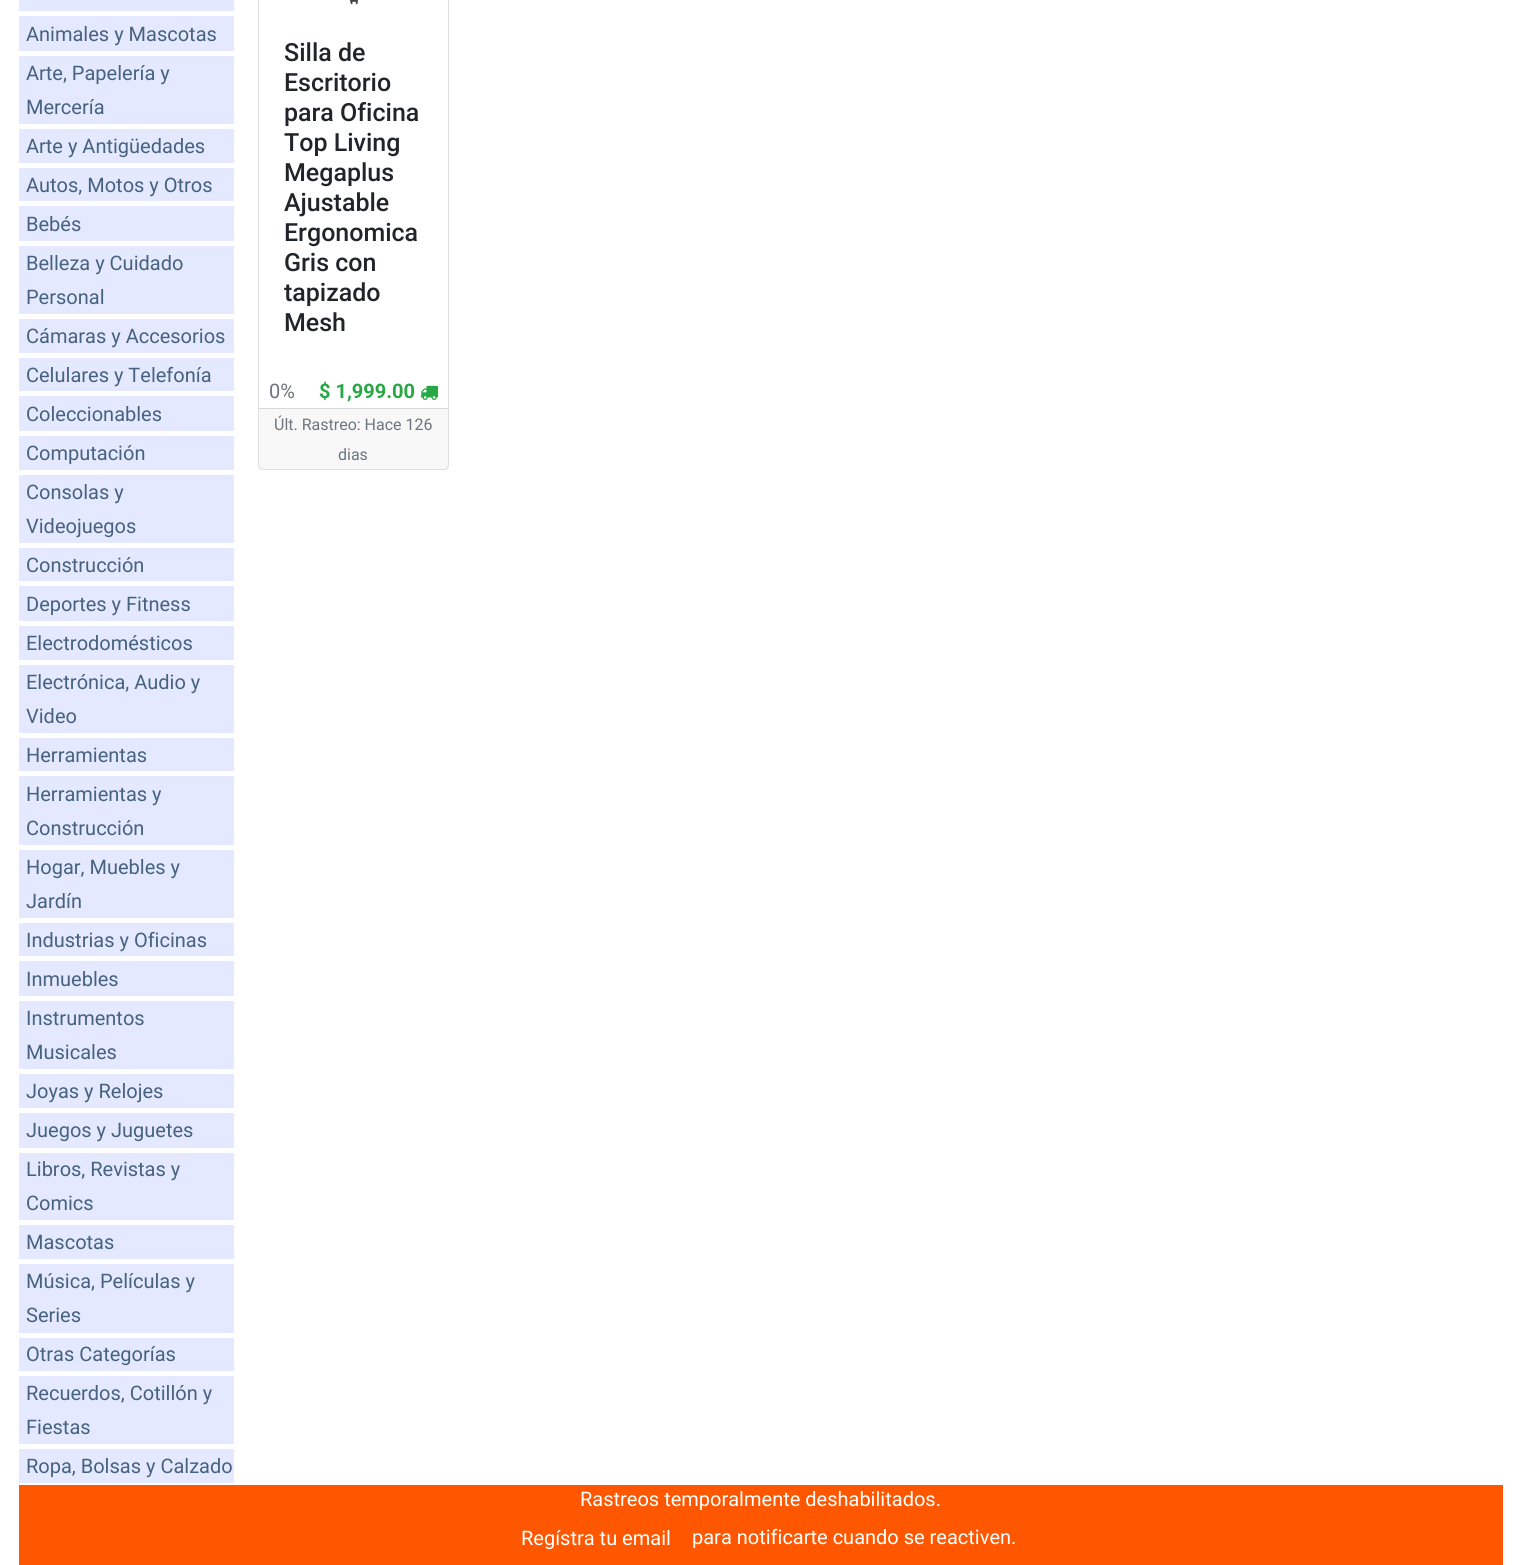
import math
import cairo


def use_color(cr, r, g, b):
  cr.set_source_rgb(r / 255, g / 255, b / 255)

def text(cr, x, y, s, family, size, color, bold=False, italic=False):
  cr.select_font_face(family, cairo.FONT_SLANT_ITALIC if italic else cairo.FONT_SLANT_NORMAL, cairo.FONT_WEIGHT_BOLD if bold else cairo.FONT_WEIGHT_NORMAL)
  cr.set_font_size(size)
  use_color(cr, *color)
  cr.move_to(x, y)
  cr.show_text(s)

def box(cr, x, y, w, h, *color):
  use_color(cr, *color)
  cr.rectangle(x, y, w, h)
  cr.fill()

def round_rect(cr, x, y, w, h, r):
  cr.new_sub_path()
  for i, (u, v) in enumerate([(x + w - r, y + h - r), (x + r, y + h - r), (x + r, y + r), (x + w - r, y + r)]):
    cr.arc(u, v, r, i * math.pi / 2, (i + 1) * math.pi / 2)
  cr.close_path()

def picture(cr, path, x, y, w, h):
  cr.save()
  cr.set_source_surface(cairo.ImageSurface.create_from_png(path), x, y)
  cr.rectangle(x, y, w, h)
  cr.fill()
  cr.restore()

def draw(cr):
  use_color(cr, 255, 255, 255)
  cr.paint()
  box(cr, 19, 0, 215, 1483, 228, 233, 255)
  box(cr, 19, 11, 215, 5, 255, 255, 255)
  box(cr, 19, 51, 215, 5, 255, 255, 255)
  box(cr, 19, 124, 215, 5, 255, 255, 255)
  box(cr, 19, 163, 215, 5, 255, 255, 255)
  box(cr, 19, 201, 215, 5, 255, 255, 255)
  box(cr, 19, 241, 215, 5, 255, 255, 255)
  box(cr, 19, 314, 215, 5, 255, 255, 255)
  box(cr, 19, 353, 215, 5, 255, 255, 255)
  box(cr, 19, 391, 215, 5, 255, 255, 255)
  box(cr, 19, 431, 215, 5, 255, 255, 255)
  box(cr, 19, 470, 215, 5, 255, 255, 255)
  box(cr, 19, 543, 215, 5, 255, 255, 255)
  box(cr, 19, 581, 215, 5, 255, 255, 255)
  box(cr, 19, 621, 215, 5, 255, 255, 255)
  box(cr, 19, 660, 215, 5, 255, 255, 255)
  box(cr, 19, 733, 215, 5, 255, 255, 255)
  box(cr, 19, 771, 215, 5, 255, 255, 255)
  box(cr, 19, 845, 215, 5, 255, 255, 255)
  box(cr, 19, 918, 215, 5, 255, 255, 255)
  box(cr, 19, 956, 215, 5, 255, 255, 255)
  box(cr, 19, 996, 215, 5, 255, 255, 255)
  box(cr, 19, 1069, 215, 5, 255, 255, 255)
  box(cr, 19, 1108, 215, 5, 255, 255, 255)
  box(cr, 19, 1148, 215, 5, 255, 255, 255)
  box(cr, 19, 1220, 215, 5, 255, 255, 255)
  box(cr, 19, 1259, 215, 5, 255, 255, 255)
  box(cr, 19, 1333, 215, 5, 255, 255, 255)
  box(cr, 19, 1371, 215, 5, 255, 255, 255)
  box(cr, 19, 1444, 215, 5, 255, 255, 255)
  round_rect(cr, 258.5, -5.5, 190, 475, 4.5)
  use_color(cr, 223, 223, 223)
  cr.set_line_width(1)
  cr.stroke()
  picture(cr, "img_01.png", 350, 0, 8, 5)
  picture(cr, "img_02.png", 420, 385, 18, 15)
  cr.set_source_rgba(0, 0, 0, 0.03)
  cr.rectangle(259, 409, 189, 60)
  cr.fill()
  box(cr, 259, 408, 189, 1, 216, 216, 216)
  box(cr, 19, 1485, 1484, 80, 255, 87, 0)
  text(cr, 26, 41, "Animales y Mascotas", "Roboto", 20, (70, 98, 128))
  text(cr, 26, 80, "Arte, Papelería y", "Roboto", 20, (70, 98, 128))
  text(cr, 26, 114, "Mercería", "Roboto", 20, (70, 98, 128))
  text(cr, 26, 153, "Arte y Antigüedades", "Roboto", 20, (70, 98, 128))
  text(cr, 26, 192, "Autos, Motos y Otros", "Roboto", 20, (70, 98, 128))
  text(cr, 26, 231, "Bebés", "Roboto", 20, (70, 98, 128))
  text(cr, 26, 270, "Belleza y Cuidado", "Roboto", 20, (70, 98, 128))
  text(cr, 26, 304, "Personal", "Roboto", 20, (70, 98, 128))
  text(cr, 26, 343, "Cámaras y Accesorios", "Roboto", 20, (70, 98, 128))
  text(cr, 26, 382, "Celulares y Telefonía", "Roboto", 20, (70, 98, 128))
  text(cr, 26, 421, "Coleccionables", "Roboto", 20, (70, 98, 128))
  text(cr, 26, 460, "Computación", "Roboto", 20, (70, 98, 128))
  text(cr, 26, 499, "Consolas y", "Roboto", 20, (70, 98, 128))
  text(cr, 26, 533, "Videojuegos", "Roboto", 20, (70, 98, 128))
  text(cr, 26, 572, "Construcción", "Roboto", 20, (70, 98, 128))
  text(cr, 26, 611, "Deportes y Fitness", "Roboto", 20, (70, 98, 128))
  text(cr, 26, 650, "Electrodomésticos", "Roboto", 20, (70, 98, 128))
  text(cr, 26, 689, "Electrónica, Audio y", "Roboto", 20, (70, 98, 128))
  text(cr, 26, 723, "Video", "Roboto", 20, (70, 98, 128))
  text(cr, 26, 762, "Herramientas", "Roboto", 20, (70, 98, 128))
  text(cr, 26, 801, "Herramientas y", "Roboto", 20, (70, 98, 128))
  text(cr, 26, 835, "Construcción", "Roboto", 20, (70, 98, 128))
  text(cr, 26, 874, "Hogar, Muebles y", "Roboto", 20, (70, 98, 128))
  text(cr, 26, 908, "Jardín", "Roboto", 20, (70, 98, 128))
  text(cr, 26, 947, "Industrias y Oficinas", "Roboto", 20, (70, 98, 128))
  text(cr, 26, 986, "Inmuebles", "Roboto", 20, (70, 98, 128))
  text(cr, 26, 1025, "Instrumentos", "Roboto", 20, (70, 98, 128))
  text(cr, 26, 1059, "Musicales", "Roboto", 20, (70, 98, 128))
  text(cr, 26, 1098, "Joyas y Relojes", "Roboto", 20, (70, 98, 128))
  text(cr, 26, 1137, "Juegos y Juguetes", "Roboto", 20, (70, 98, 128))
  text(cr, 26, 1176, "Libros, Revistas y", "Roboto", 20, (70, 98, 128))
  text(cr, 26, 1210, "Comics", "Roboto", 20, (70, 98, 128))
  text(cr, 26, 1249, "Mascotas", "Roboto", 20, (70, 98, 128))
  text(cr, 26, 1288, "Música, Películas y", "Roboto", 20, (70, 98, 128))
  text(cr, 26, 1322, "Series", "Roboto", 20, (70, 98, 128))
  text(cr, 26, 1361, "Otras Categorías", "Roboto", 20, (70, 98, 128))
  text(cr, 26, 1400, "Recuerdos, Cotillón y", "Roboto", 20, (70, 98, 128))
  text(cr, 26, 1434, "Fiestas", "Roboto", 20, (70, 98, 128))
  text(cr, 26, 1473, "Ropa, Bolsas y Calzado", "Roboto", 20, (70, 98, 128))
  text(cr, 284, 61, "Silla de", "Roboto Medium", 25, (33, 37, 41))
  text(cr, 284, 91, "Escritorio", "Roboto Medium", 25, (33, 37, 41))
  text(cr, 284, 121, "para Oficina", "Roboto Medium", 25, (33, 37, 41))
  text(cr, 284, 151, "Top Living", "Roboto Medium", 25, (33, 37, 41))
  text(cr, 284, 181, "Megaplus", "Roboto Medium", 25, (33, 37, 41))
  text(cr, 284, 211, "Ajustable", "Roboto Medium", 25, (33, 37, 41))
  text(cr, 284, 241, "Ergonomica", "Roboto Medium", 25, (33, 37, 41))
  text(cr, 284, 271, "Gris con", "Roboto Medium", 25, (33, 37, 41))
  text(cr, 284, 301, "tapizado", "Roboto Medium", 25, (33, 37, 41))
  text(cr, 284, 331, "Mesh", "Roboto Medium", 25, (33, 37, 41))
  text(cr, 269, 398, "0%", "Roboto", 20, (108, 117, 125))
  text(cr, 319, 398, "$ 1,999.00", "Roboto", 20, (40, 167, 69), bold=True)
  text(cr, 274, 430, "Últ. Rastreo: Hace 126", "Roboto", 16, (108, 117, 125))
  text(cr, 338, 460, "dias", "Roboto", 16, (108, 117, 125))
  text(cr, 580, 1506, "Rastreos temporalmente deshabilitados.", "Roboto", 20, (255, 255, 255))
  text(cr, 521, 1545, "Regístra tu email", "Roboto", 20, (255, 255, 255))
  text(cr, 692, 1544, "para notificarte cuando se reactiven.", "Roboto", 20, (255, 255, 255))


surface = cairo.ImageSurface(cairo.FORMAT_RGB24, 1513, 1565)
cr = cairo.Context(surface)
options = cairo.FontOptions()
options.set_hint_metrics(cairo.HINT_METRICS_OFF)
options.set_hint_style(cairo.HINT_STYLE_NONE)
cr.set_font_options(options)
cr.set_miter_limit(4)
draw(cr)
surface.write_to_png("out.png")
